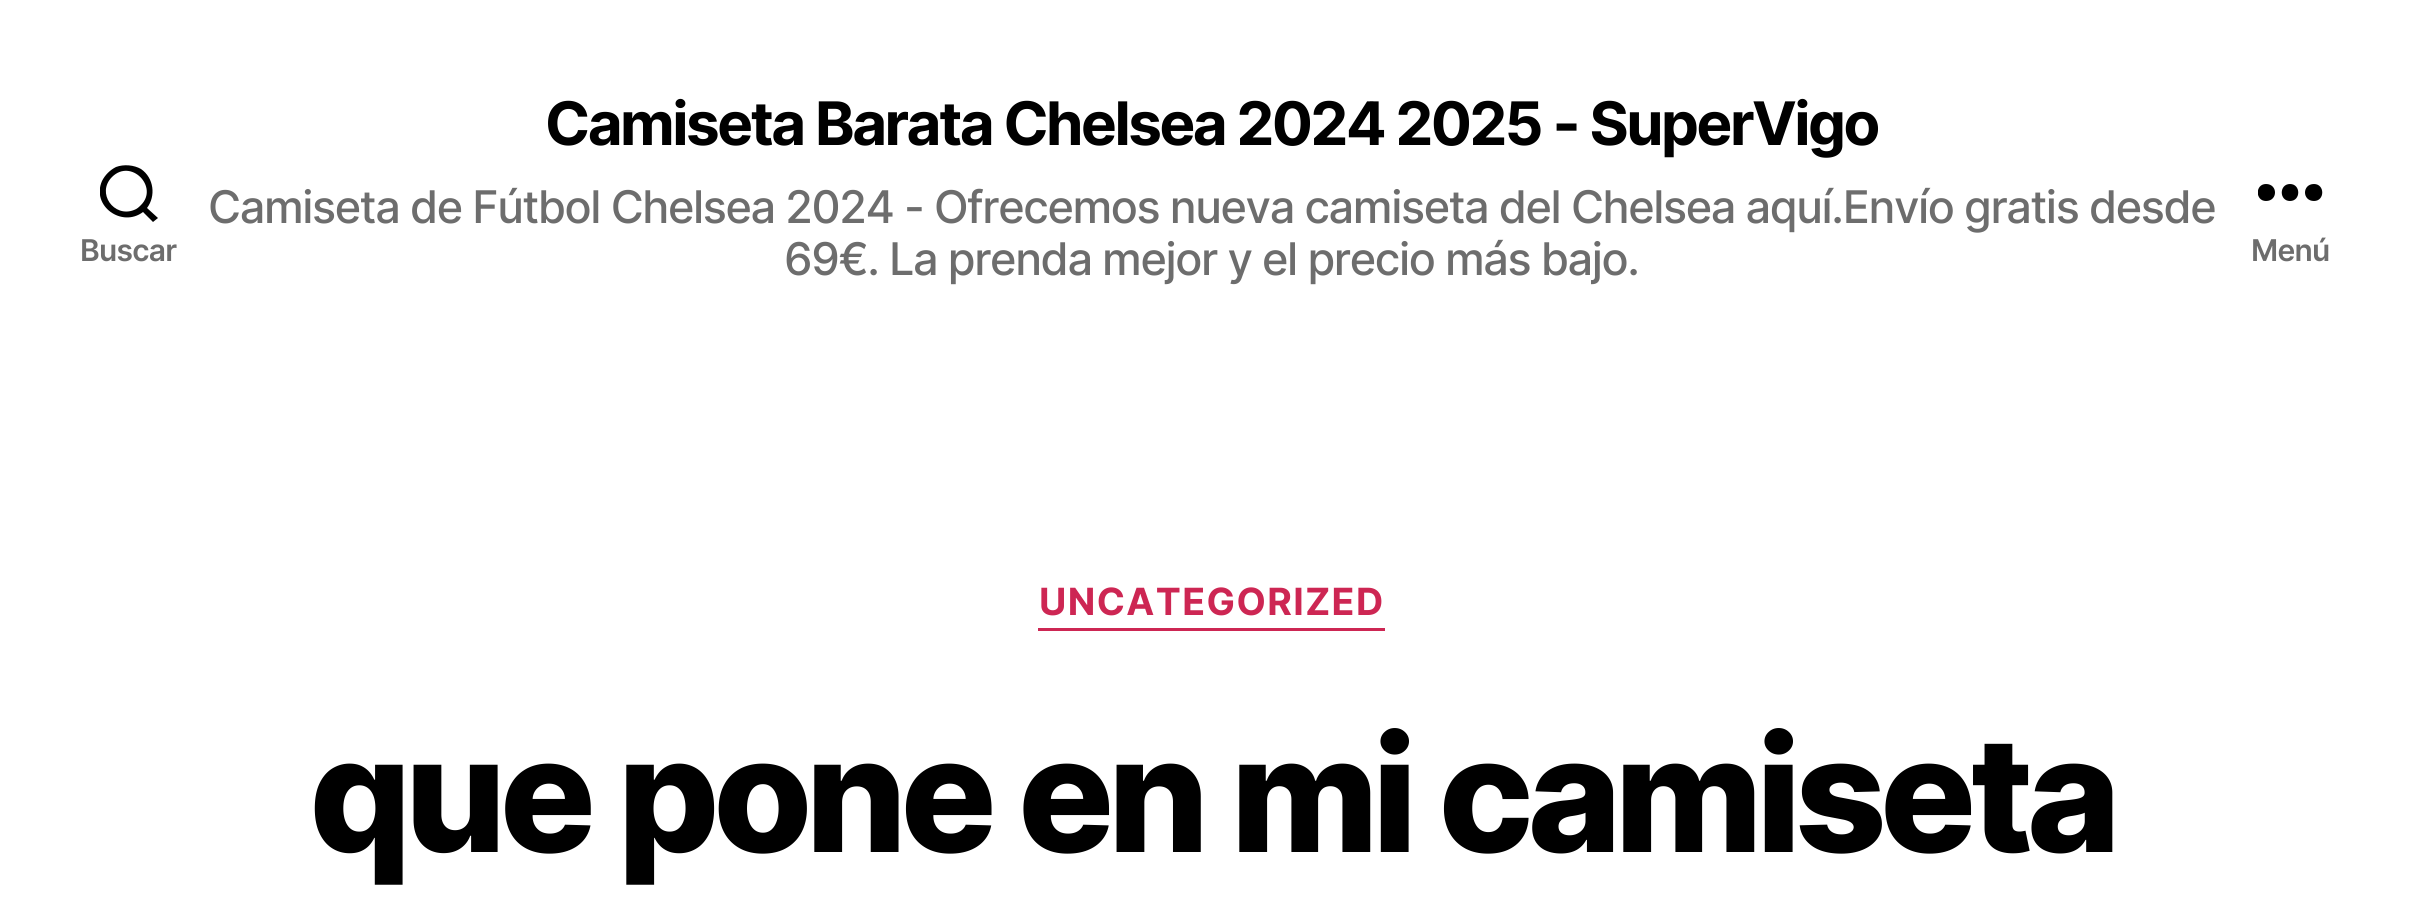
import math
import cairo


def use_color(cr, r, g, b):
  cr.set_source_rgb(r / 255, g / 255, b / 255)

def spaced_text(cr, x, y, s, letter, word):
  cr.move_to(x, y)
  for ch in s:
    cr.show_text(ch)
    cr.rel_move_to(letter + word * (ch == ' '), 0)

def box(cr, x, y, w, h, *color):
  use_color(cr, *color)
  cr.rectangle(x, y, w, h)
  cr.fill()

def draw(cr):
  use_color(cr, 255, 255, 255)
  cr.paint()
  cr.save()
  cr.rectangle(100, 163, 58, 62)
  cr.clip()
  use_color(cr, 0, 0, 0)
  cr.new_path()
  cr.move_to(147, 208)
  cr.line_to(158, 218)
  cr.line_to(153, 222)
  cr.line_to(143, 212)
  cr.curve_to(122, 228, 91, 206, 102, 181)
  cr.curve_to(105, 175, 110, 170, 116, 167)
  cr.curve_to(124, 164, 134, 165, 141, 169)
  cr.curve_to(154, 178, 156, 196, 147, 208)
  cr.close_path()
  cr.move_to(141, 205)
  cr.curve_to(159, 187, 131, 158, 112, 177)
  cr.curve_to(96, 193, 114, 218, 134, 210)
  cr.curve_to(137, 209, 139, 207, 141, 205)
  cr.close_path()
  cr.fill()
  cr.restore()
  cr.save()
  cr.rectangle(2258, 183, 65, 20)
  cr.clip()
  use_color(cr, 0, 0, 0)
  cr.set_fill_rule(cairo.FILL_RULE_EVEN_ODD)
  cr.new_path()
  cr.move_to(2266, 201)
  cr.curve_to(2255, 201, 2255, 184, 2266, 184)
  cr.curve_to(2278, 184, 2278, 201, 2266, 201)
  cr.close_path()
  cr.move_to(2290, 201)
  cr.curve_to(2279, 201, 2279, 184, 2290, 184)
  cr.curve_to(2301, 184, 2301, 201, 2290, 201)
  cr.close_path()
  cr.move_to(2314, 201)
  cr.curve_to(2302, 201, 2302, 184, 2314, 184)
  cr.curve_to(2325, 184, 2325, 201, 2314, 201)
  cr.close_path()
  cr.fill()
  cr.restore()
  box(cr, 1038, 628, 347, 3, 205, 38, 83)
  cr.select_font_face("Inter SemiBold")
  cr.set_font_size(30)
  use_color(cr, 109, 109, 109)
  spaced_text(cr, 80, 261, "Buscar", -0.75, 0)
  cr.select_font_face("Inter", cairo.FONT_SLANT_NORMAL, cairo.FONT_WEIGHT_BOLD)
  cr.set_font_size(60)
  use_color(cr, 0, 0, 0)
  spaced_text(cr, 545, 145, "Camiseta Barata Chelsea 2024 2025 - SuperVigo", -2.5, 0)
  cr.select_font_face("Inter Medium")
  cr.set_font_size(45)
  use_color(cr, 109, 109, 109)
  spaced_text(cr, 208, 223, "Camiseta de Fútbol Chelsea 2024 - Ofrecemos nueva camiseta del Chelsea aquí.Envío gratis desde", -1.4, 0)
  spaced_text(cr, 784, 275, "69€. La prenda mejor y el precio más bajo.", -1.4, 0)
  cr.select_font_face("Inter SemiBold")
  cr.set_font_size(30)
  spaced_text(cr, 2251, 261, "Menú", -0.75, 0)
  cr.select_font_face("Inter", cairo.FONT_SLANT_NORMAL, cairo.FONT_WEIGHT_BOLD)
  cr.set_font_size(37.5)
  use_color(cr, 205, 38, 83)
  spaced_text(cr, 1039, 615, "UNCATEGORIZED", 1.4, 0)
  cr.select_font_face("Inter ExtraBold")
  cr.set_font_size(160)
  use_color(cr, 0, 0, 0)
  spaced_text(cr, 309, 852, "que pone en mi camiseta", -6.65, 0)


surface = cairo.ImageSurface(cairo.FORMAT_RGB24, 2421, 900)
cr = cairo.Context(surface)
options = cairo.FontOptions()
options.set_hint_metrics(cairo.HINT_METRICS_OFF)
options.set_hint_style(cairo.HINT_STYLE_NONE)
cr.set_font_options(options)
cr.set_miter_limit(4)
draw(cr)
surface.write_to_png("out.png")
